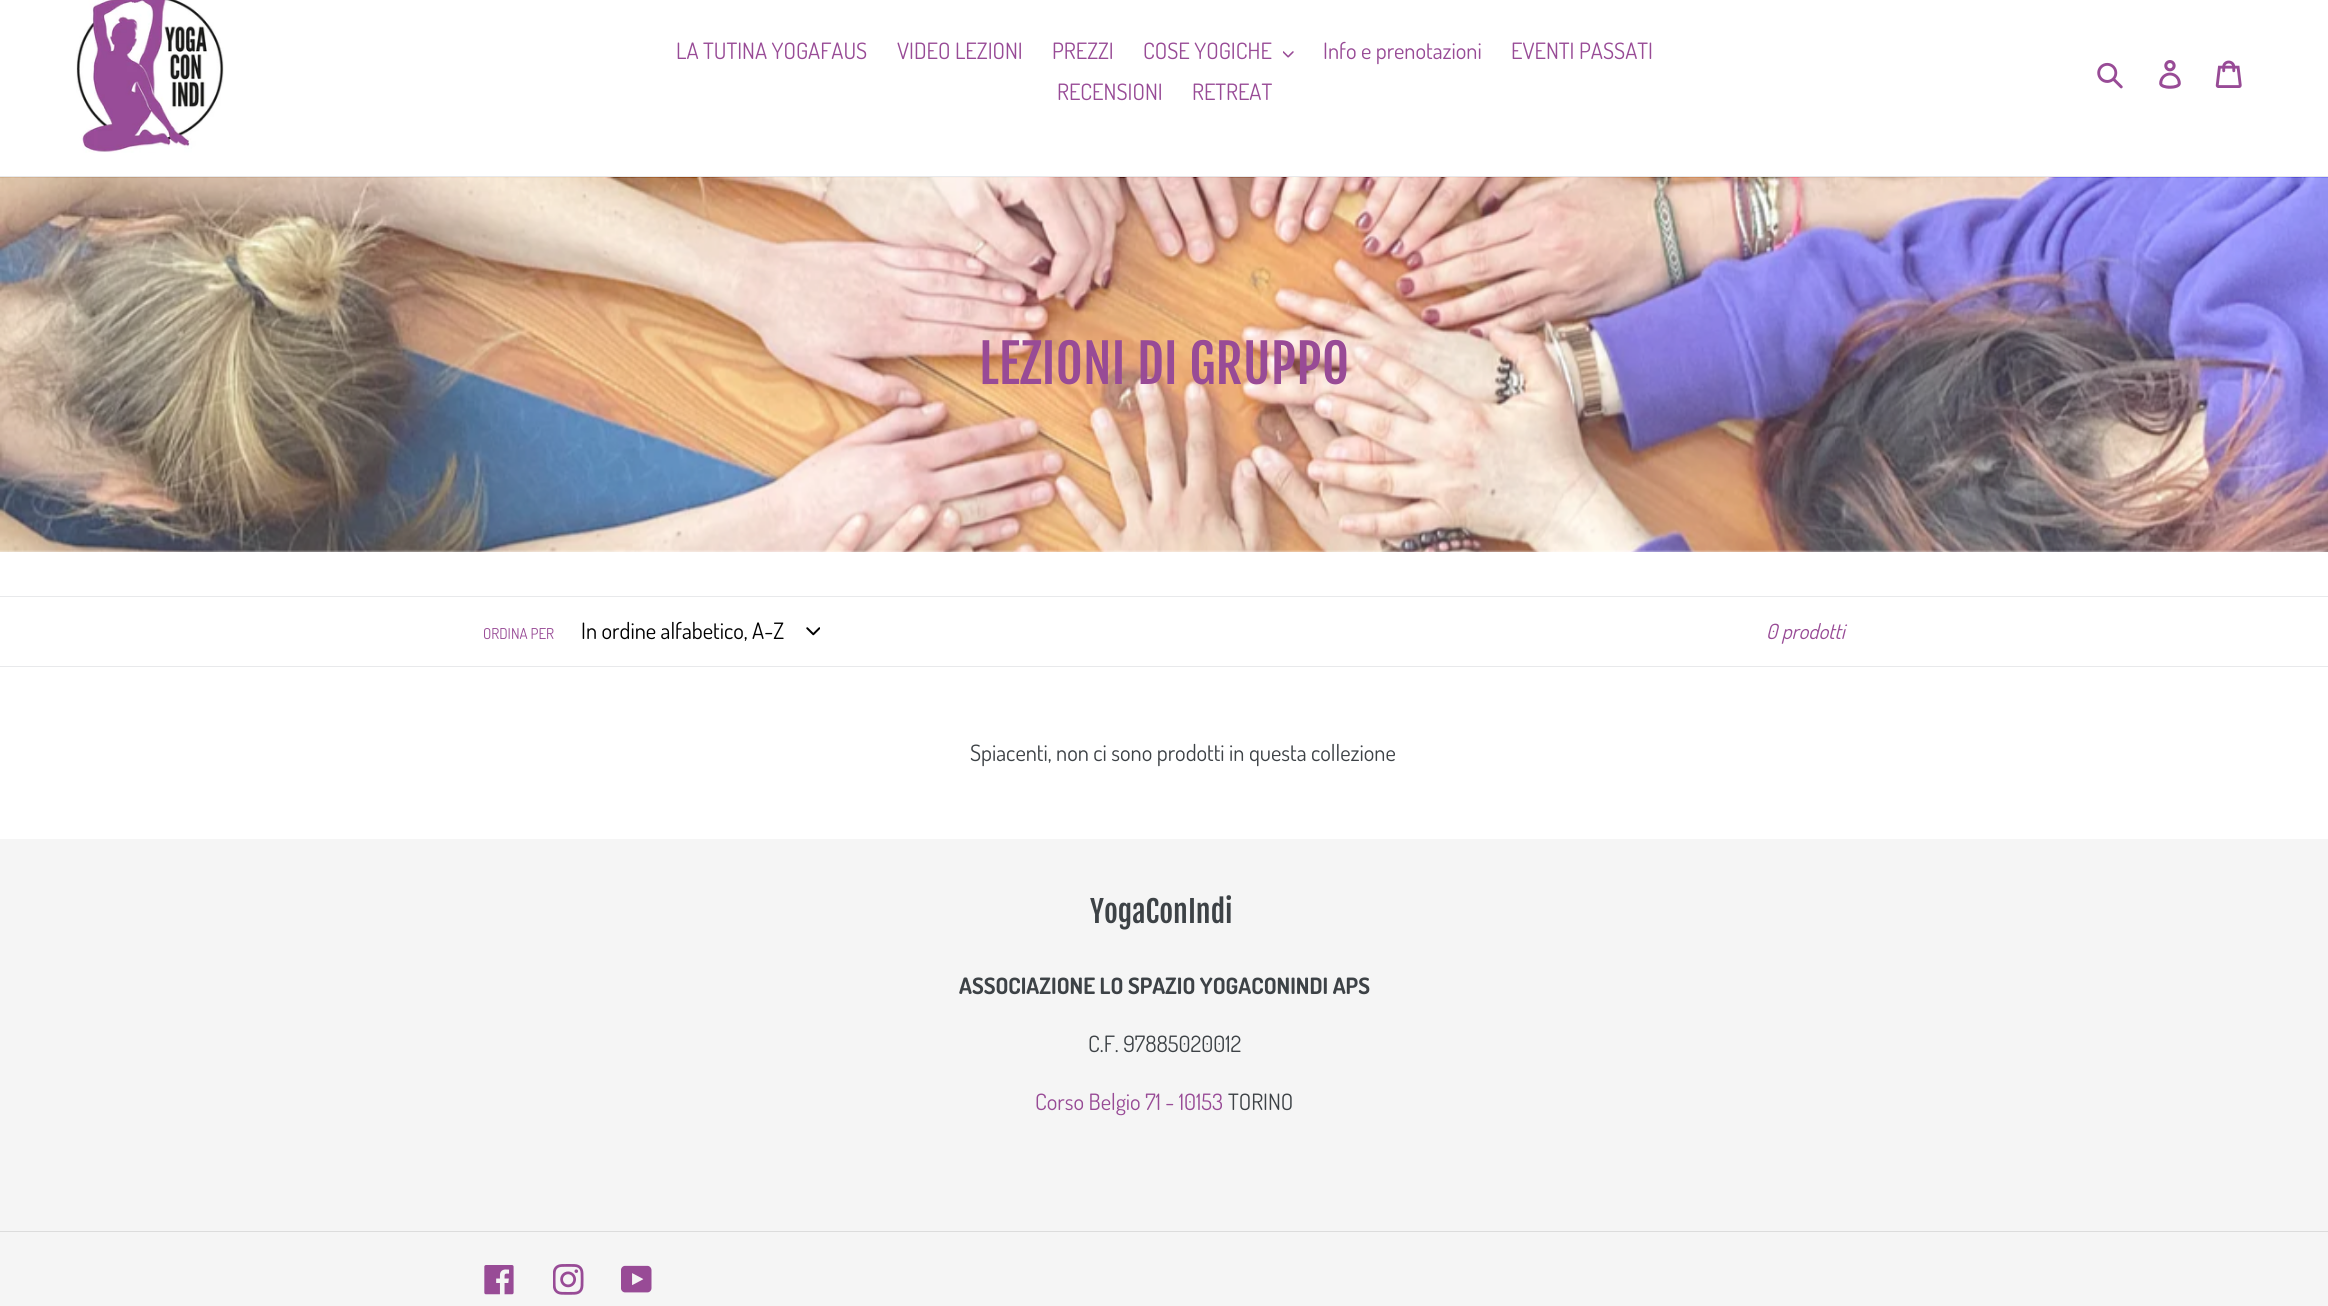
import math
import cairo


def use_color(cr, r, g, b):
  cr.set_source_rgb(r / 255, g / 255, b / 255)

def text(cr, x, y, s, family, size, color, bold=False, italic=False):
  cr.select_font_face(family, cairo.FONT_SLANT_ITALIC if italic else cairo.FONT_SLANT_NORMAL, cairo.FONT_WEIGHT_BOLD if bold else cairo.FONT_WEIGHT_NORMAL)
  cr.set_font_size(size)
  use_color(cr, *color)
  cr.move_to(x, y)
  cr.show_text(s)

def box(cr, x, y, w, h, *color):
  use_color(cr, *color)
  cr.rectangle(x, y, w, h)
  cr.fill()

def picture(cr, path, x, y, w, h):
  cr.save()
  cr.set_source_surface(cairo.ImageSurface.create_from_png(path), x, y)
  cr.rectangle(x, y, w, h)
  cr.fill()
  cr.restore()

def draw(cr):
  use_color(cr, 255, 255, 255)
  cr.paint()
  box(cr, 0, 176, 2328, 1, 232, 233, 235)
  picture(cr, "img_01.png", 76, 0, 148, 153)
  picture(cr, "img_02.png", 1283, 51, 11, 7)
  picture(cr, "img_03.png", 2097, 62, 26, 27)
  picture(cr, "img_04.png", 2159, 60, 22, 29)
  picture(cr, "img_05.png", 2215, 60, 27, 28)
  picture(cr, "img_06.png", 0, 177, 2328, 375)
  box(cr, 0, 596, 2328, 1, 232, 233, 235)
  box(cr, 0, 666, 2328, 1, 232, 233, 235)
  picture(cr, "img_07.png", 806, 627, 14, 9)
  box(cr, 0, 839, 2328, 467, 245, 245, 245)
  box(cr, 0, 1231, 2328, 1, 220, 220, 220)
  picture(cr, "img_08.png", 484, 1265, 30, 30)
  picture(cr, "img_09.png", 553, 1264, 31, 31)
  picture(cr, "img_10.png", 621, 1265, 31, 28)
  text(cr, 676, 59, "LA TUTINA YOGAFAUS", "Dosis", 22.5, (152, 75, 150))
  text(cr, 897, 59, "VIDEO LEZIONI", "Dosis", 22.5, (152, 75, 150))
  text(cr, 1052, 59, "PREZZI", "Dosis", 22.5, (152, 75, 150))
  text(cr, 1143, 59, "COSE YOGICHE", "Dosis", 22.5, (152, 75, 150))
  text(cr, 1323, 59, "Info e prenotazioni", "Dosis", 22.5, (152, 75, 150))
  text(cr, 1511, 59, "EVENTI PASSATI", "Dosis", 22.5, (152, 75, 150))
  text(cr, 1057, 100, "RECENSIONI", "Dosis", 22.5, (152, 75, 150))
  text(cr, 1192, 100, "RETREAT", "Dosis", 22.5, (152, 75, 150))
  text(cr, 979, 384, "LEZIONI DI GRUPPO", "Fjalla One", 52.5, (152, 75, 150))
  text(cr, 483, 639, "ORDINA PER", "Dosis", 15, (152, 75, 150))
  text(cr, 581, 639, "In ordine alfabetico, A-Z", "Dosis", 22.5, (0, 0, 0))
  text(cr, 1766, 639, "0 prodotti", "Dosis", 21, (152, 75, 150), italic=True)
  text(cr, 970, 761, "Spiacenti, non ci sono prodotti in questa collezione", "Dosis", 22.5, (61, 66, 70))
  text(cr, 1090, 923, "YogaConIndi", "Fjalla One", 30, (61, 66, 70))
  text(cr, 959, 994, "ASSOCIAZIONE LO SPAZIO YOGACONINDI APS", "Dosis", 22.5, (61, 66, 70), bold=True)
  text(cr, 1088, 1052, "C.F. 97885020012", "Dosis", 22.5, (61, 66, 70))
  text(cr, 1035, 1110, "Corso Belgio 71 - 10153", "Dosis", 22.5, (152, 75, 150))
  text(cr, 1228, 1110, "TORINO", "Dosis", 22.5, (61, 66, 70))


surface = cairo.ImageSurface(cairo.FORMAT_RGB24, 2328, 1306)
cr = cairo.Context(surface)
options = cairo.FontOptions()
options.set_hint_metrics(cairo.HINT_METRICS_OFF)
options.set_hint_style(cairo.HINT_STYLE_NONE)
cr.set_font_options(options)
cr.set_miter_limit(4)
draw(cr)
surface.write_to_png("out.png")
